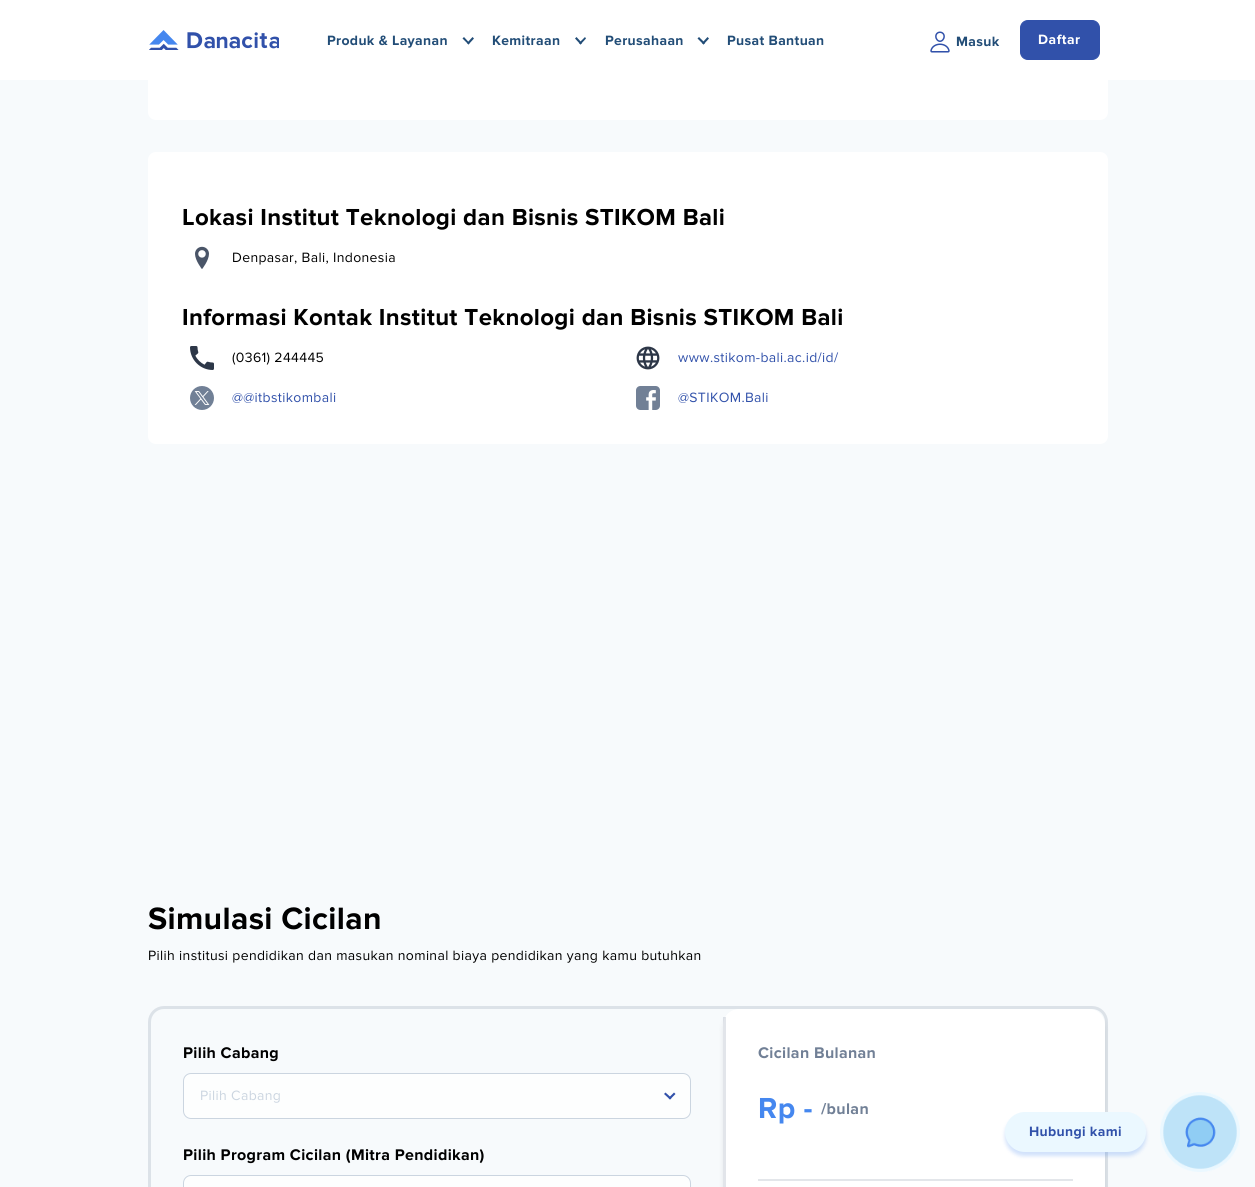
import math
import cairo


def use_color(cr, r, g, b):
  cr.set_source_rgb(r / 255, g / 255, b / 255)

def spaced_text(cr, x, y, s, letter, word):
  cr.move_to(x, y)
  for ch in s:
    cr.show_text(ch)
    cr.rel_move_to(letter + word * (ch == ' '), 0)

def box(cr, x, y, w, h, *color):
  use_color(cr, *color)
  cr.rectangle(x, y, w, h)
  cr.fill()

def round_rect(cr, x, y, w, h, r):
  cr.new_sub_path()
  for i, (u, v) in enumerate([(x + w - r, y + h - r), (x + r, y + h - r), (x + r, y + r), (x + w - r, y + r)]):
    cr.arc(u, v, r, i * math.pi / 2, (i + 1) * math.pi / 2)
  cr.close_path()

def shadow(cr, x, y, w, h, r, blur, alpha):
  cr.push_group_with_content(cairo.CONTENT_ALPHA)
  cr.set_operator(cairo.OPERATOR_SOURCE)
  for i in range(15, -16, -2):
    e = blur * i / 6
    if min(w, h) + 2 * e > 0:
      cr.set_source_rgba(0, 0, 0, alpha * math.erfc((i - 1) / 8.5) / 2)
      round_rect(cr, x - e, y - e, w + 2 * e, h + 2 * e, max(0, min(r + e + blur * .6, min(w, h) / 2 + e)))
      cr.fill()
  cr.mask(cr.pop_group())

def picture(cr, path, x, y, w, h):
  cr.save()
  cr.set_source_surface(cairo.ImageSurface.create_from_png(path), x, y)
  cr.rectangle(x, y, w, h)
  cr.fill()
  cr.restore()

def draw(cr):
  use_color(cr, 247, 250, 252)
  cr.paint()
  use_color(cr, 255, 255, 255)
  round_rect(cr, 148, -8, 960, 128, 8)
  cr.fill()
  box(cr, 0, 0, 1255, 80, 255, 255, 255)
  picture(cr, "img_01.png", 149, 30, 130, 20)
  use_color(cr, 34, 77, 119)
  cr.new_path()
  cr.move_to(474, 38.5)
  cr.line_to(468.5, 44.5)
  cr.line_to(467, 43)
  cr.line_to(472.5, 37)
  cr.close_path()
  cr.fill()
  cr.new_path()
  cr.move_to(469.5, 43)
  cr.line_to(468.5, 44.5)
  cr.line_to(462.5, 38.5)
  cr.line_to(464, 37)
  cr.close_path()
  cr.fill()
  cr.new_path()
  cr.move_to(586, 38.5)
  cr.line_to(580.5, 44.5)
  cr.line_to(579, 43)
  cr.line_to(585, 37)
  cr.close_path()
  cr.fill()
  cr.new_path()
  cr.move_to(582, 43)
  cr.line_to(580.5, 44.5)
  cr.line_to(575, 38.5)
  cr.line_to(576.5, 37)
  cr.close_path()
  cr.fill()
  cr.new_path()
  cr.move_to(709, 38.5)
  cr.line_to(703.5, 44.5)
  cr.line_to(702, 43)
  cr.line_to(707.5, 37)
  cr.close_path()
  cr.fill()
  cr.new_path()
  cr.move_to(705, 43)
  cr.line_to(703.5, 44.5)
  cr.line_to(697.5, 38.5)
  cr.line_to(699, 37)
  cr.close_path()
  cr.fill()
  picture(cr, "img_02.png", 930, 31, 20, 22)
  use_color(cr, 49, 81, 170)
  round_rect(cr, 1020.5, 20.5, 79, 39, 7.5)
  cr.fill_preserve()
  cr.set_line_width(1)
  cr.stroke()
  use_color(cr, 255, 255, 255)
  round_rect(cr, 148, 152, 960, 292, 8)
  cr.fill()
  picture(cr, "img_03.png", 195, 246, 14, 23)
  picture(cr, "img_04.png", 190, 346, 24, 24)
  picture(cr, "img_05.png", 636, 346, 24, 24)
  picture(cr, "img_06.png", 190, 386, 24, 24)
  picture(cr, "img_07.png", 636, 386, 24, 24)
  round_rect(cr, 149.5, 1007.5, 957, 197, 14.5)
  use_color(cr, 220, 226, 232)
  cr.set_line_width(3)
  cr.stroke()
  use_color(cr, 253, 254, 254)
  round_rect(cr, 183.5, 1073.5, 507, 45, 7.5)
  cr.fill_preserve()
  use_color(cr, 203, 213, 224)
  cr.set_line_width(1)
  cr.stroke()
  use_color(cr, 49, 81, 170)
  cr.new_path()
  cr.move_to(675.5, 1094)
  cr.line_to(670, 1099.5)
  cr.line_to(668.5, 1098)
  cr.line_to(674, 1092.5)
  cr.close_path()
  cr.fill()
  cr.new_path()
  cr.move_to(671.5, 1098)
  cr.line_to(670, 1099.5)
  cr.line_to(664, 1094)
  cr.line_to(665.5, 1092.5)
  cr.close_path()
  cr.fill()
  use_color(cr, 253, 254, 254)
  round_rect(cr, 183.5, 1175.5, 507, 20, 7.5)
  cr.fill_preserve()
  use_color(cr, 203, 213, 224)
  cr.stroke()
  use_color(cr, 0, 0, 0)
  shadow(cr, 724, 1014, 380, 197, 15, 3, 0.1)
  use_color(cr, 255, 255, 255)
  round_rect(cr, 723, 1009, 382, 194, 16)
  cr.fill()
  cr.set_source_rgba(0.443, 0.502, 0.588, 0.2)
  cr.rectangle(723, 1017, 3, 170)
  cr.fill()
  box(cr, 758, 1179, 315, 2, 227, 230, 234)
  use_color(cr, 69, 135, 239)
  shadow(cr, 1005, 1116, 141, 40, 20, 2, 0.25)
  use_color(cr, 235, 248, 255)
  round_rect(cr, 1005, 1112, 141, 40, 20)
  cr.fill()
  picture(cr, "img_08.png", 1160, 1092, 80, 80)
  cr.select_font_face("Proxima Nova", cairo.FONT_SLANT_NORMAL, cairo.FONT_WEIGHT_BOLD)
  cr.set_font_size(14)
  use_color(cr, 34, 77, 119)
  spaced_text(cr, 327, 45, "Produk & Layanan", 0.35, 0)
  spaced_text(cr, 492, 45, "Kemitraan", 0.35, 0)
  spaced_text(cr, 605, 45, "Perusahaan", 0.35, 0)
  spaced_text(cr, 727, 45, "Pusat Bantuan", 0.35, 0)
  spaced_text(cr, 956, 46, "Masuk", 0.35, 0)
  use_color(cr, 255, 255, 255)
  spaced_text(cr, 1038, 44, "Daftar", 0.5, 0)
  cr.set_font_size(24)
  use_color(cr, 0, 0, 0)
  spaced_text(cr, 182, 225, "Lokasi Institut Teknologi dan Bisnis STIKOM Bali", 0.35, 0)
  cr.select_font_face("Proxima Nova")
  cr.set_font_size(14)
  spaced_text(cr, 232, 262, "Denpasar, Bali, Indonesia", 0.35, 0)
  cr.select_font_face("Proxima Nova", cairo.FONT_SLANT_NORMAL, cairo.FONT_WEIGHT_BOLD)
  cr.set_font_size(24)
  spaced_text(cr, 182, 325, "Informasi Kontak Institut Teknologi dan Bisnis STIKOM Bali", 0.35, 0)
  cr.select_font_face("Proxima Nova")
  cr.set_font_size(14)
  spaced_text(cr, 232, 362, "(0361) 244445", 0.35, 0)
  use_color(cr, 49, 81, 170)
  spaced_text(cr, 678, 362, "www.stikom-bali.ac.id/id/", 0.35, 0)
  spaced_text(cr, 232, 402, "@@itbstikombali", 0.35, 0)
  spaced_text(cr, 678, 402, "@STIKOM.Bali", 0.35, 0)
  cr.select_font_face("Proxima Nova", cairo.FONT_SLANT_NORMAL, cairo.FONT_WEIGHT_BOLD)
  cr.set_font_size(32)
  use_color(cr, 0, 0, 0)
  spaced_text(cr, 148, 929, "Simulasi Cicilan", 0.35, 0)
  cr.select_font_face("Proxima Nova")
  cr.set_font_size(14)
  spaced_text(cr, 148, 960, "Pilih institusi pendidikan dan masukan nominal biaya pendidikan yang kamu butuhkan", 0.35, 0)
  cr.select_font_face("Proxima Nova", cairo.FONT_SLANT_NORMAL, cairo.FONT_WEIGHT_BOLD)
  cr.set_font_size(16)
  spaced_text(cr, 183, 1058, "Pilih Cabang", 0.35, 0)
  cr.select_font_face("Proxima Nova")
  cr.set_font_size(14)
  use_color(cr, 203, 213, 224)
  spaced_text(cr, 200, 1100, "Pilih Cabang", 0.35, 0)
  cr.select_font_face("Proxima Nova", cairo.FONT_SLANT_NORMAL, cairo.FONT_WEIGHT_BOLD)
  cr.set_font_size(16)
  use_color(cr, 0, 0, 0)
  spaced_text(cr, 183, 1160, "Pilih Program Cicilan (Mitra Pendidikan)", 0.35, 0)
  use_color(cr, 113, 128, 150)
  spaced_text(cr, 758, 1058, "Cicilan Bulanan", 0.35, 0)
  cr.set_font_size(30)
  use_color(cr, 69, 135, 239)
  spaced_text(cr, 758, 1118, "Rp -", 0.35, 0)
  cr.set_font_size(16)
  use_color(cr, 113, 128, 150)
  spaced_text(cr, 821, 1114, "/bulan", 0.35, 0)
  cr.set_font_size(14)
  use_color(cr, 49, 81, 170)
  spaced_text(cr, 1029, 1136, "Hubungi kami", 0.35, 0)


surface = cairo.ImageSurface(cairo.FORMAT_RGB24, 1255, 1187)
cr = cairo.Context(surface)
options = cairo.FontOptions()
options.set_hint_metrics(cairo.HINT_METRICS_OFF)
options.set_hint_style(cairo.HINT_STYLE_NONE)
cr.set_font_options(options)
cr.set_miter_limit(4)
draw(cr)
surface.write_to_png("out.png")
